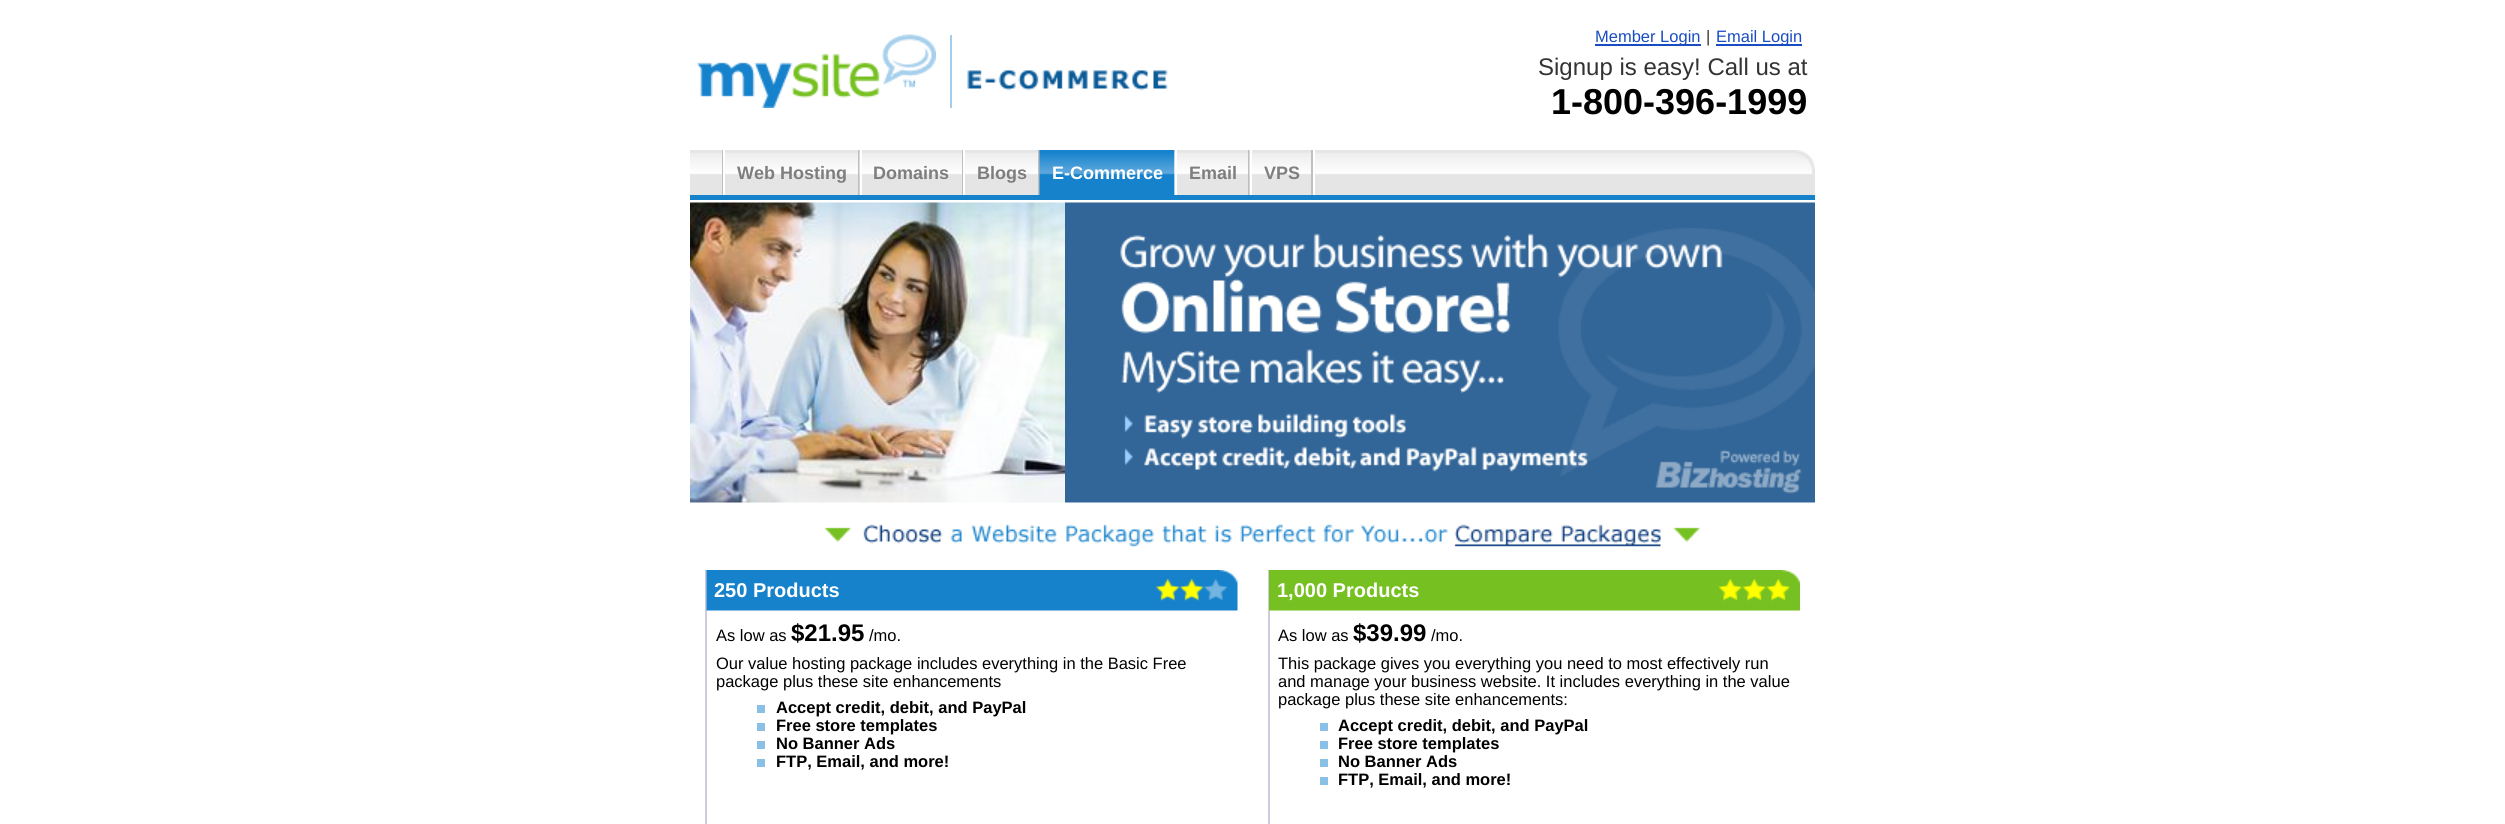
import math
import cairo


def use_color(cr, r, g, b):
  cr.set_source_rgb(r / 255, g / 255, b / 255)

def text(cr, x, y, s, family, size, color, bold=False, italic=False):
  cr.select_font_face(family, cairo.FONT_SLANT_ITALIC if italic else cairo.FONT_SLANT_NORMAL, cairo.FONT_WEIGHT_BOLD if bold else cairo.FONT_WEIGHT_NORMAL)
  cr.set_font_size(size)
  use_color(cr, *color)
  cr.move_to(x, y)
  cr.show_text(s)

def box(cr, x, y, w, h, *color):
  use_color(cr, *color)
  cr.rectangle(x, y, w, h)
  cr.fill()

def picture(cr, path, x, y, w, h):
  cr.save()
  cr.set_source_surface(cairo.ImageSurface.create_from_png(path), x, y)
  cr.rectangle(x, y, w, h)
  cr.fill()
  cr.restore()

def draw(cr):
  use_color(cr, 255, 255, 255)
  cr.paint()
  picture(cr, "img_01.png", 697, 34, 239, 74)
  box(cr, 950, 35, 2, 73, 162, 205, 235)
  picture(cr, "img_02.png", 967, 70, 201, 21)
  box(cr, 1595, 44, 106, 2, 24, 76, 195)
  box(cr, 1716, 44, 86, 2, 24, 76, 195)
  picture(cr, "img_03.png", 690, 150, 1125, 45)
  box(cr, 722, 150, 1, 45, 191, 191, 191)
  box(cr, 858, 150, 2, 45, 191, 191, 191)
  box(cr, 723, 150, 2, 45, 255, 255, 255)
  picture(cr, "img_04.png", 859, 150, 1, 45)
  box(cr, 962, 150, 1, 45, 191, 191, 191)
  box(cr, 860, 150, 2, 45, 255, 255, 255)
  box(cr, 1038, 150, 2, 45, 191, 191, 191)
  box(cr, 963, 150, 2, 45, 255, 255, 255)
  picture(cr, "img_05.png", 1039, 150, 136, 45)
  picture(cr, "img_06.png", 1174, 150, 1, 45)
  box(cr, 1248, 150, 2, 45, 191, 191, 191)
  box(cr, 1175, 150, 2, 45, 255, 255, 255)
  picture(cr, "img_04.png", 1249, 150, 1, 45)
  box(cr, 1311, 150, 2, 45, 191, 191, 191)
  box(cr, 1250, 150, 2, 45, 255, 255, 255)
  box(cr, 1313, 150, 2, 45, 255, 255, 255)
  picture(cr, "img_07.png", 1796, 150, 19, 24)
  box(cr, 690, 195, 1125, 5, 22, 130, 204)
  picture(cr, "img_08.png", 690, 202, 375, 301)
  picture(cr, "img_09.png", 1065, 202, 750, 301)
  picture(cr, "img_10.png", 824, 524, 876, 23)
  box(cr, 705, 570, 2, 254, 204, 204, 221)
  picture(cr, "img_11.png", 706, 570, 532, 41)
  box(cr, 757, 705, 8, 8, 138, 192, 229)
  box(cr, 757, 723, 8, 8, 138, 192, 229)
  box(cr, 757, 741, 8, 8, 138, 192, 229)
  box(cr, 757, 759, 8, 8, 138, 192, 229)
  box(cr, 1268, 570, 2, 254, 204, 204, 221)
  picture(cr, "img_12.png", 1269, 570, 531, 41)
  box(cr, 1320, 723, 8, 8, 138, 192, 229)
  box(cr, 1320, 741, 8, 8, 138, 192, 229)
  box(cr, 1320, 759, 8, 8, 138, 192, 229)
  box(cr, 1320, 777, 8, 8, 138, 192, 229)
  text(cr, 1595, 42, "Member Login", "Liberation Sans", 16.5, (24, 76, 195))
  text(cr, 1706, 42, "|", "Liberation Sans", 16.5, (51, 51, 51))
  text(cr, 1716, 42, "Email Login", "Liberation Sans", 16.5, (24, 76, 195))
  text(cr, 1538, 75, "Signup is easy! Call us at", "Liberation Sans", 24, (51, 51, 51))
  text(cr, 1551, 114, "1-800-396-1999", "Liberation Sans", 36, (0, 0, 0), bold=True)
  text(cr, 737, 179, "Web Hosting", "Liberation Sans", 18, (126, 126, 126), bold=True)
  text(cr, 873, 179, "Domains", "Liberation Sans", 18, (126, 126, 126), bold=True)
  text(cr, 977, 179, "Blogs", "Liberation Sans", 18, (126, 126, 126), bold=True)
  text(cr, 1052, 179, "E-Commerce", "Liberation Sans", 18, (255, 255, 255), bold=True)
  text(cr, 1189, 179, "Email", "Liberation Sans", 18, (126, 126, 126), bold=True)
  text(cr, 1264, 179, "VPS", "Liberation Sans", 18, (126, 126, 126), bold=True)
  text(cr, 714, 597, "250 Products", "Liberation Sans", 20, (255, 255, 255), bold=True)
  text(cr, 716, 641, "As low as", "Liberation Sans", 16.5, (0, 0, 0))
  text(cr, 791, 641, "$21.95", "Liberation Sans", 24, (0, 0, 0), bold=True)
  text(cr, 869, 641, "/mo.", "Liberation Sans", 16.5, (0, 0, 0))
  text(cr, 716, 669, "Our value hosting package includes everything in the Basic Free", "Liberation Sans", 16.5, (0, 0, 0))
  text(cr, 716, 687, "package plus these site enhancements", "Liberation Sans", 16.5, (0, 0, 0))
  text(cr, 776, 713, "Accept credit, debit, and PayPal", "Liberation Sans", 16.5, (0, 0, 0), bold=True)
  text(cr, 776, 731, "Free store templates", "Liberation Sans", 16.5, (0, 0, 0), bold=True)
  text(cr, 776, 749, "No Banner Ads", "Liberation Sans", 16.5, (0, 0, 0), bold=True)
  text(cr, 776, 767, "FTP, Email, and more!", "Liberation Sans", 16.5, (0, 0, 0), bold=True)
  text(cr, 1277, 597, "1,000 Products", "Liberation Sans", 20, (255, 255, 255), bold=True)
  text(cr, 1278, 641, "As low as", "Liberation Sans", 16.5, (0, 0, 0))
  text(cr, 1353, 641, "$39.99", "Liberation Sans", 24, (0, 0, 0), bold=True)
  text(cr, 1431, 641, "/mo.", "Liberation Sans", 16.5, (0, 0, 0))
  text(cr, 1278, 669, "This package gives you everything you need to most effectively run", "Liberation Sans", 16.5, (0, 0, 0))
  text(cr, 1278, 687, "and manage your business website. It includes everything in the value", "Liberation Sans", 16.5, (0, 0, 0))
  text(cr, 1278, 705, "package plus these site enhancements:", "Liberation Sans", 16.5, (0, 0, 0))
  text(cr, 1338, 731, "Accept credit, debit, and PayPal", "Liberation Sans", 16.5, (0, 0, 0), bold=True)
  text(cr, 1338, 749, "Free store templates", "Liberation Sans", 16.5, (0, 0, 0), bold=True)
  text(cr, 1338, 767, "No Banner Ads", "Liberation Sans", 16.5, (0, 0, 0), bold=True)
  text(cr, 1338, 785, "FTP, Email, and more!", "Liberation Sans", 16.5, (0, 0, 0), bold=True)


surface = cairo.ImageSurface(cairo.FORMAT_RGB24, 2505, 824)
cr = cairo.Context(surface)
options = cairo.FontOptions()
options.set_hint_metrics(cairo.HINT_METRICS_OFF)
options.set_hint_style(cairo.HINT_STYLE_NONE)
cr.set_font_options(options)
cr.set_miter_limit(4)
draw(cr)
surface.write_to_png("out.png")
